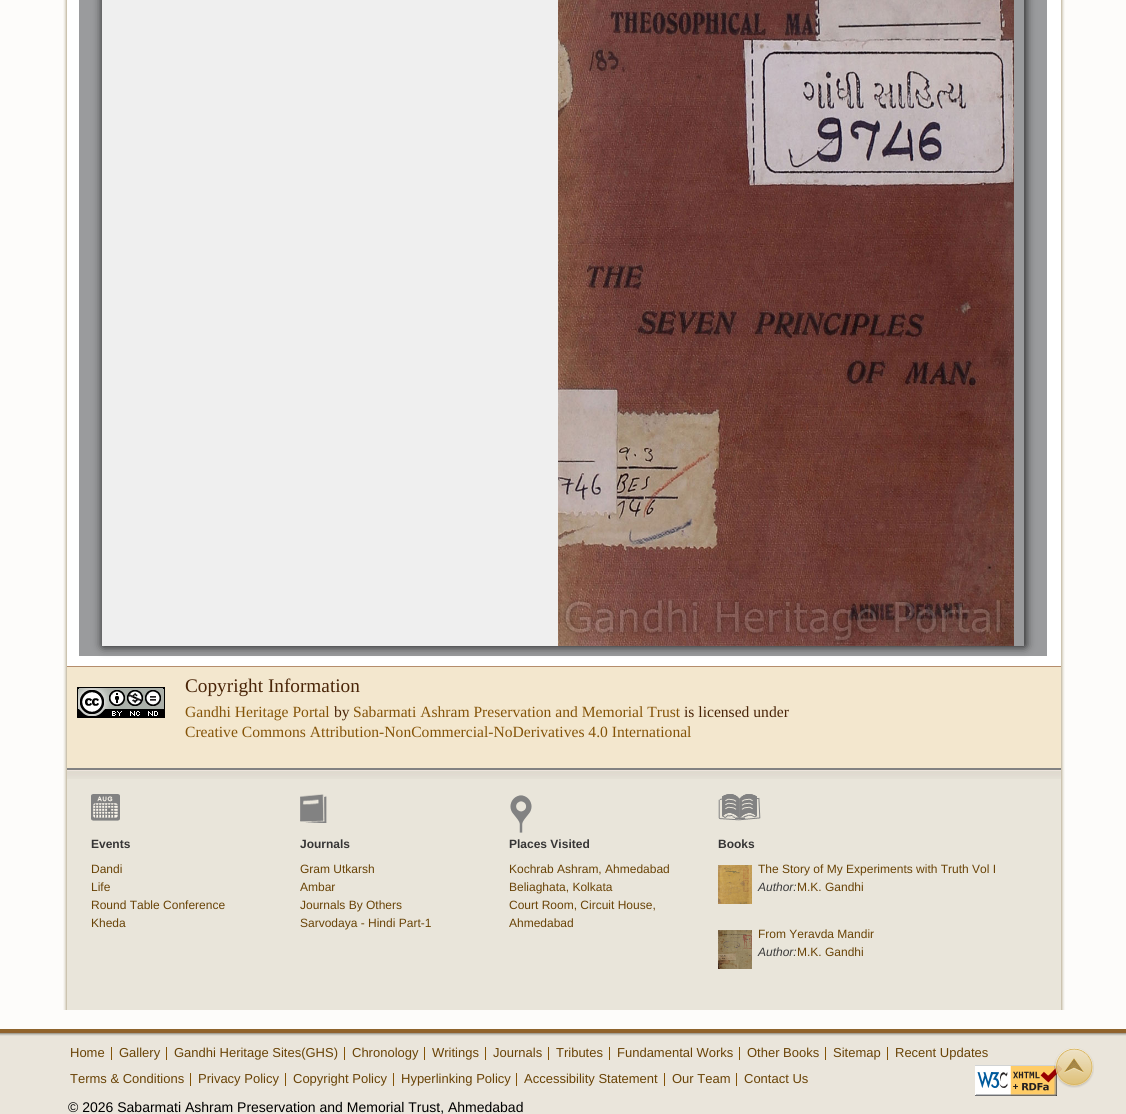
import math
import cairo


def use_color(cr, r, g, b):
  cr.set_source_rgb(r / 255, g / 255, b / 255)

def text(cr, x, y, s, family, size, color, bold=False, italic=False):
  cr.select_font_face(family, cairo.FONT_SLANT_ITALIC if italic else cairo.FONT_SLANT_NORMAL, cairo.FONT_WEIGHT_BOLD if bold else cairo.FONT_WEIGHT_NORMAL)
  cr.set_font_size(size)
  use_color(cr, *color)
  cr.move_to(x, y)
  cr.show_text(s)

def box(cr, x, y, w, h, *color):
  use_color(cr, *color)
  cr.rectangle(x, y, w, h)
  cr.fill()

def round_rect(cr, x, y, w, h, r):
  cr.new_sub_path()
  for i, (u, v) in enumerate([(x + w - r, y + h - r), (x + r, y + h - r), (x + r, y + r), (x + w - r, y + r)]):
    cr.arc(u, v, r, i * math.pi / 2, (i + 1) * math.pi / 2)
  cr.close_path()

def shadow(cr, x, y, w, h, r, blur, alpha):
  cr.push_group_with_content(cairo.CONTENT_ALPHA)
  cr.set_operator(cairo.OPERATOR_SOURCE)
  for i in range(15, -16, -2):
    e = blur * i / 6
    if min(w, h) + 2 * e > 0:
      cr.set_source_rgba(0, 0, 0, alpha * math.erfc((i - 1) / 8.5) / 2)
      round_rect(cr, x - e, y - e, w + 2 * e, h + 2 * e, max(0, min(r + e + blur * .6, min(w, h) / 2 + e)))
      cr.fill()
  cr.mask(cr.pop_group())

def picture(cr, path, x, y, w, h):
  cr.save()
  cr.set_source_surface(cairo.ImageSurface.create_from_png(path), x, y)
  cr.rectangle(x, y, w, h)
  cr.fill()
  cr.restore()

def draw(cr):
  use_color(cr, 253, 252, 250)
  cr.paint()
  picture(cr, "img_01.png", 63, 0, 1002, 1010)
  box(cr, 79, 0, 968, 656, 154, 155, 157)
  cr.save()
  cr.set_fill_rule(cairo.FILL_RULE_EVEN_ODD)
  cr.new_path()
  cr.move_to(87, 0)
  cr.line_to(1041, 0)
  cr.line_to(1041, 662)
  cr.line_to(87, 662)
  cr.close_path()
  cr.move_to(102, -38)
  cr.line_to(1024, -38)
  cr.line_to(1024, 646)
  cr.line_to(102, 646)
  cr.close_path()
  cr.clip()
  use_color(cr, 17, 17, 17)
  shadow(cr, 103, -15, 922, 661, 0, 5, 1)
  cr.restore()
  box(cr, 102, 0, 456, 646, 239, 239, 239)
  picture(cr, "img_02.png", 558, 0, 456, 646)
  box(cr, 67, 667, 994, 101, 243, 231, 206)
  box(cr, 67, 666, 994, 1, 180, 141, 108)
  box(cr, 67, 768, 994, 2, 130, 130, 130)
  picture(cr, "img_03.png", 77, 687, 88, 31)
  box(cr, 67, 779, 994, 231, 233, 229, 218)
  picture(cr, "img_04.png", 67, 770, 994, 9)
  picture(cr, "img_05.png", 91, 794, 29, 27)
  picture(cr, "img_06.png", 300, 794, 27, 29)
  picture(cr, "img_07.png", 510, 795, 22, 38)
  picture(cr, "img_08.png", 718, 794, 43, 27)
  picture(cr, "img_09.png", 718, 865, 34, 39)
  picture(cr, "img_10.png", 718, 930, 34, 39)
  box(cr, 0, 1036, 1126, 78, 234, 229, 219)
  picture(cr, "img_11.png", 0, 1029, 1126, 7)
  box(cr, 111, 1047, 1, 13, 131, 83, 7)
  box(cr, 166, 1047, 1, 13, 131, 83, 7)
  box(cr, 344, 1047, 1, 13, 131, 83, 7)
  box(cr, 424, 1047, 1, 13, 131, 83, 7)
  box(cr, 485, 1047, 1, 13, 131, 83, 7)
  box(cr, 548, 1047, 1, 13, 131, 83, 7)
  box(cr, 609, 1047, 1, 13, 131, 83, 7)
  box(cr, 739, 1047, 1, 13, 131, 83, 7)
  box(cr, 825, 1047, 1, 13, 131, 83, 7)
  box(cr, 887, 1047, 1, 13, 131, 83, 7)
  box(cr, 190, 1073, 1, 13, 131, 83, 7)
  box(cr, 285, 1073, 1, 13, 131, 83, 7)
  box(cr, 393, 1073, 1, 13, 131, 83, 7)
  box(cr, 516, 1073, 1, 13, 131, 83, 7)
  box(cr, 664, 1073, 1, 13, 131, 83, 7)
  box(cr, 736, 1073, 1, 13, 131, 83, 7)
  picture(cr, "img_12.png", 975, 1065, 87, 31)
  picture(cr, "img_13.png", 1054, 1048, 40, 40)
  text(cr, 185, 692, "Copyright Information", "Liberation Serif", 19.25, (73, 36, 7))
  text(cr, 185, 717, "Gandhi Heritage Portal", "Liberation Serif", 15.6, (133, 84, 8))
  text(cr, 334, 717, "by", "Liberation Serif", 15.6, (73, 36, 7))
  text(cr, 353, 717, "Sabarmati Ashram Preservation and Memorial Trust", "Liberation Serif", 15.6, (133, 84, 8))
  text(cr, 684, 717, "is licensed under", "Liberation Serif", 15.6, (73, 36, 7))
  text(cr, 185, 737, "Creative Commons Attribution-NonCommercial-NoDerivatives 4.0 International", "Liberation Serif", 15.6, (133, 84, 8))
  text(cr, 91, 848, "Events", "Liberation Sans", 12, (54, 53, 53), bold=True)
  text(cr, 91, 873, "Dandi", "Liberation Sans", 12, (105, 67, 6))
  text(cr, 91, 891, "Life", "Liberation Sans", 12, (105, 67, 6))
  text(cr, 91, 909, "Round Table Conference", "Liberation Sans", 12, (105, 67, 6))
  text(cr, 91, 927, "Kheda", "Liberation Sans", 12, (105, 67, 6))
  text(cr, 300, 848, "Journals", "Liberation Sans", 12, (54, 53, 53), bold=True)
  text(cr, 300, 873, "Gram Utkarsh", "Liberation Sans", 12, (105, 67, 6))
  text(cr, 300, 891, "Ambar", "Liberation Sans", 12, (105, 67, 6))
  text(cr, 300, 909, "Journals By Others", "Liberation Sans", 12, (105, 67, 6))
  text(cr, 300, 927, "Sarvodaya - Hindi Part-1", "Liberation Sans", 12, (105, 67, 6))
  text(cr, 509, 848, "Places Visited", "Liberation Sans", 12, (54, 53, 53), bold=True)
  text(cr, 509, 873, "Kochrab Ashram, Ahmedabad", "Liberation Sans", 12, (105, 67, 6))
  text(cr, 509, 891, "Beliaghata, Kolkata", "Liberation Sans", 12, (105, 67, 6))
  text(cr, 509, 909, "Court Room, Circuit House,", "Liberation Sans", 12, (105, 67, 6))
  text(cr, 509, 927, "Ahmedabad", "Liberation Sans", 12, (105, 67, 6))
  text(cr, 718, 848, "Books", "Liberation Sans", 12, (54, 53, 53), bold=True)
  text(cr, 758, 873, "The Story of My Experiments with Truth Vol I", "Liberation Sans", 12, (105, 67, 6))
  text(cr, 758, 891, "Author:", "Liberation Sans", 12, (59, 59, 59), italic=True)
  text(cr, 797, 891, "M.K. Gandhi", "Liberation Sans", 12, (105, 67, 6))
  text(cr, 758, 938, "From Yeravda Mandir", "Liberation Sans", 12, (105, 67, 6))
  text(cr, 758, 956, "Author:", "Liberation Sans", 12, (59, 59, 59), italic=True)
  text(cr, 797, 956, "M.K. Gandhi", "Liberation Sans", 12, (105, 67, 6))
  text(cr, 70, 1057, "Home", "Liberation Sans", 13, (105, 67, 6))
  text(cr, 119, 1057, "Gallery", "Liberation Sans", 13, (105, 67, 6))
  text(cr, 174, 1057, "Gandhi Heritage Sites(GHS)", "Liberation Sans", 13, (105, 67, 6))
  text(cr, 352, 1057, "Chronology", "Liberation Sans", 13, (105, 67, 6))
  text(cr, 432, 1057, "Writings", "Liberation Sans", 13, (105, 67, 6))
  text(cr, 493, 1057, "Journals", "Liberation Sans", 13, (105, 67, 6))
  text(cr, 556, 1057, "Tributes", "Liberation Sans", 13, (105, 67, 6))
  text(cr, 617, 1057, "Fundamental Works", "Liberation Sans", 13, (105, 67, 6))
  text(cr, 747, 1057, "Other Books", "Liberation Sans", 13, (105, 67, 6))
  text(cr, 833, 1057, "Sitemap", "Liberation Sans", 13, (105, 67, 6))
  text(cr, 895, 1057, "Recent Updates", "Liberation Sans", 13, (105, 67, 6))
  text(cr, 70, 1083, "Terms & Conditions", "Liberation Sans", 13, (105, 67, 6))
  text(cr, 198, 1083, "Privacy Policy", "Liberation Sans", 13, (105, 67, 6))
  text(cr, 293, 1083, "Copyright Policy", "Liberation Sans", 13, (105, 67, 6))
  text(cr, 401, 1083, "Hyperlinking Policy", "Liberation Sans", 13, (105, 67, 6))
  text(cr, 524, 1083, "Accessibility Statement", "Liberation Sans", 13, (105, 67, 6))
  text(cr, 672, 1083, "Our Team", "Liberation Sans", 13, (105, 67, 6))
  text(cr, 744, 1083, "Contact Us", "Liberation Sans", 13, (105, 67, 6))
  text(cr, 68, 1112, "© 2026 Sabarmati Ashram Preservation and Memorial Trust, Ahmedabad", "Liberation Sans", 14, (0, 0, 0))


surface = cairo.ImageSurface(cairo.FORMAT_RGB24, 1126, 1114)
cr = cairo.Context(surface)
options = cairo.FontOptions()
options.set_hint_metrics(cairo.HINT_METRICS_OFF)
options.set_hint_style(cairo.HINT_STYLE_NONE)
cr.set_font_options(options)
cr.set_miter_limit(4)
draw(cr)
surface.write_to_png("out.png")
